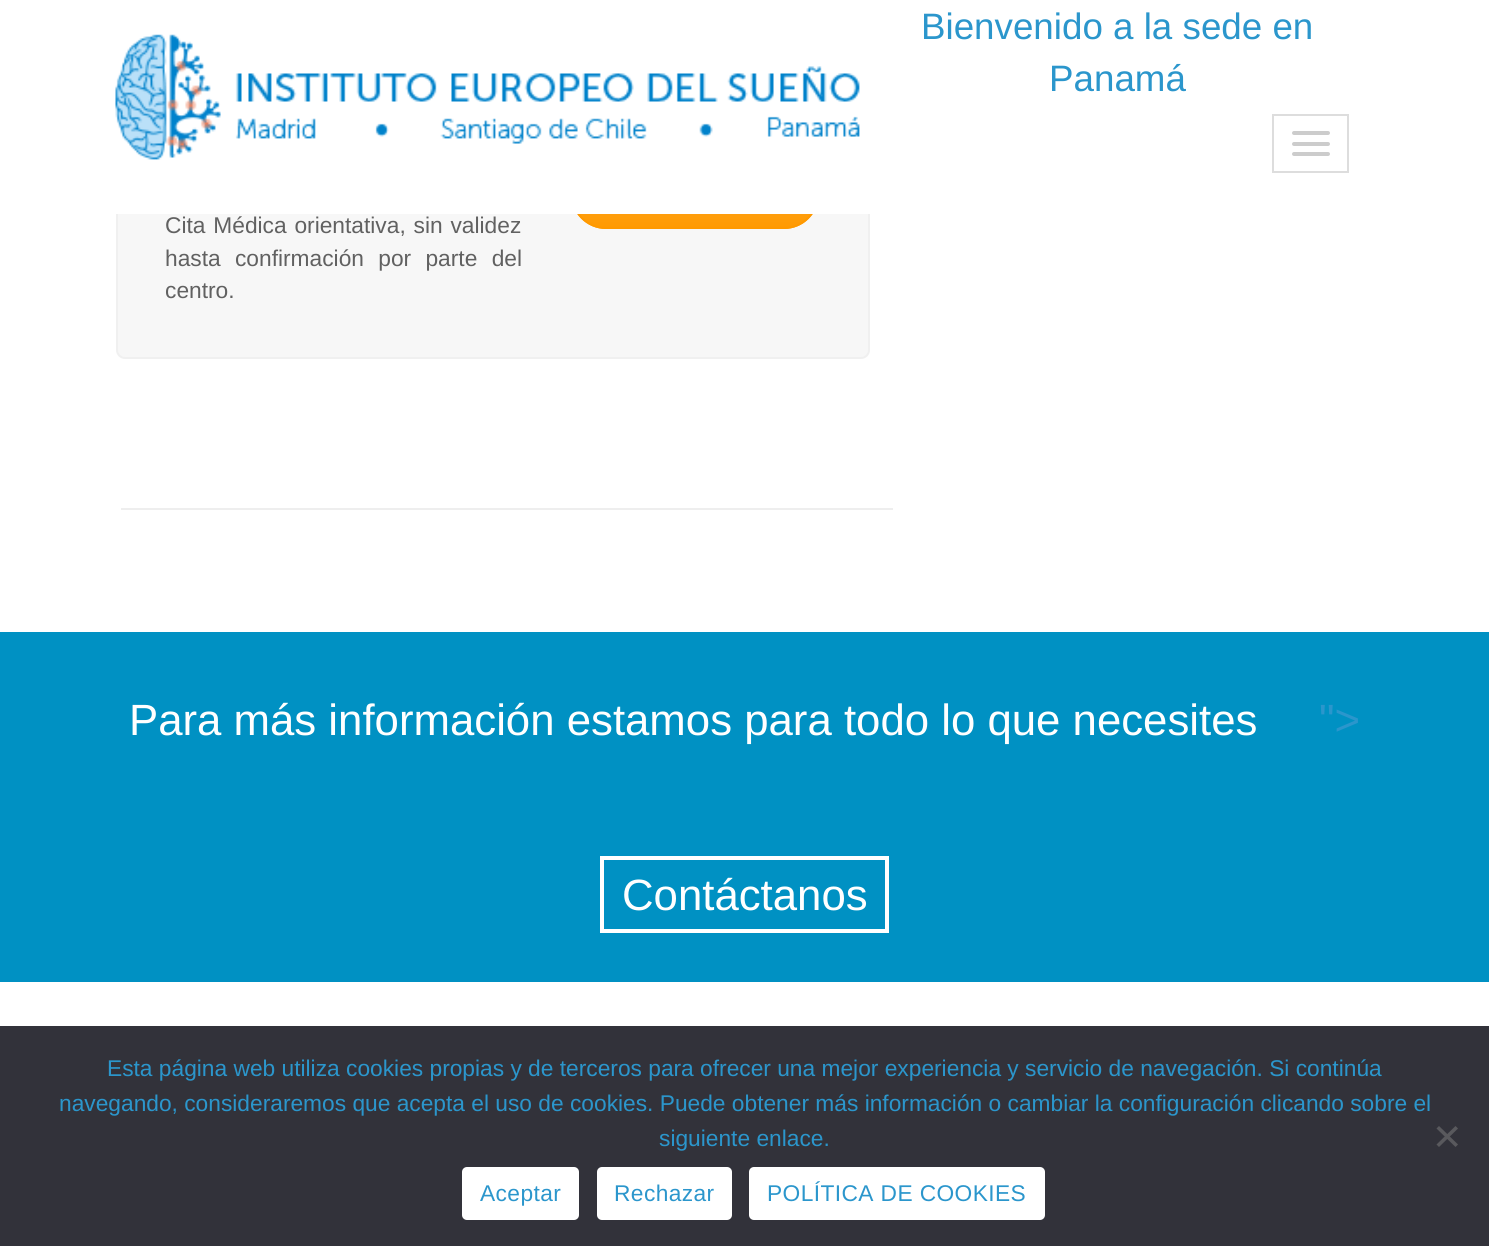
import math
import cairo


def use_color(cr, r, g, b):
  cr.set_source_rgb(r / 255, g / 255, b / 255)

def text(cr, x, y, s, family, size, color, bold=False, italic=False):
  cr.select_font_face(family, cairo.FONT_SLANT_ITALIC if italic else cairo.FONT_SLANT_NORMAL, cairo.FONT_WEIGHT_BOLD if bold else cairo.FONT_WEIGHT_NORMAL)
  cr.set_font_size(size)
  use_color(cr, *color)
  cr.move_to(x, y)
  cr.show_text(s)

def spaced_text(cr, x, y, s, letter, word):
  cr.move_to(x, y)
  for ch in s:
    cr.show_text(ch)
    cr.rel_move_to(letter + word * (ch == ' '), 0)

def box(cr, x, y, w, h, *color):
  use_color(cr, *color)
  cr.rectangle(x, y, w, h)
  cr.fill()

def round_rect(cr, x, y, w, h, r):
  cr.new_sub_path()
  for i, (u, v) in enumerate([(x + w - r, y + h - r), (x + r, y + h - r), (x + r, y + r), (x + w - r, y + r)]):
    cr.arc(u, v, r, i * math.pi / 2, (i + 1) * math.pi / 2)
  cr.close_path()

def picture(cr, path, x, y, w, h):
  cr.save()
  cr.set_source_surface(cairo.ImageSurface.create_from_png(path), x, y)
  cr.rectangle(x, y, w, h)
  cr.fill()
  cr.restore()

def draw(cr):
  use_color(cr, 255, 255, 255)
  cr.paint()
  use_color(cr, 247, 247, 247)
  round_rect(cr, 117, 20, 752, 338, 8)
  cr.fill_preserve()
  use_color(cr, 240, 240, 240)
  cr.stroke()
  use_color(cr, 255, 153, 0)
  round_rect(cr, 571, 149, 248, 80, 35)
  cr.fill()
  gradient = cairo.LinearGradient(695, 151, 695, 228)
  gradient.add_color_stop_rgba(0, 1, 1, 1, 0.2)
  gradient.add_color_stop_rgba(1, 1, 1, 1, 0.01)
  cr.set_source(gradient)
  cr.new_path()
  cr.move_to(571, 184)
  cr.line_to(571, 194)
  cr.curve_to(571, 210, 582, 224, 598, 228)
  cr.line_to(792, 228)
  cr.curve_to(808, 224, 819, 210, 819, 194)
  cr.line_to(819, 184)
  cr.curve_to(819, 169, 809, 156, 796, 151)
  cr.line_to(594, 151)
  cr.curve_to(581, 156, 571, 169, 571, 184)
  cr.close_path()
  cr.fill()
  round_rect(cr, 572, 150, 246, 78, 34)
  use_color(cr, 255, 153, 0)
  cr.stroke()
  box(cr, 116, 19, 754, 195, 255, 255, 255)
  picture(cr, "img_01.png", 115, 34, 745, 126)
  cr.rectangle(1273, 115, 75, 57)
  use_color(cr, 221, 221, 221)
  cr.stroke()
  use_color(cr, 204, 204, 204)
  round_rect(cr, 1292, 131, 38, 4, 2)
  cr.fill()
  round_rect(cr, 1292, 142, 38, 4, 2)
  cr.fill()
  round_rect(cr, 1292, 152, 38, 4, 2)
  cr.fill()
  box(cr, 121, 508, 772, 2, 238, 238, 238)
  box(cr, 0, 632, 1489, 350, 0, 145, 195)
  cr.rectangle(602, 858, 285, 73)
  use_color(cr, 255, 255, 255)
  cr.set_line_width(4)
  cr.stroke()
  box(cr, 0, 1026, 1489, 220, 50, 50, 58)
  use_color(cr, 89, 89, 93)
  cr.new_path()
  cr.move_to(1455.5, 1126)
  cr.line_to(1458, 1128.5)
  cr.line_to(1439, 1147)
  cr.line_to(1436.5, 1144.5)
  cr.close_path()
  cr.fill()
  cr.new_path()
  cr.move_to(1436.5, 1128.5)
  cr.line_to(1439, 1126)
  cr.line_to(1458, 1144.5)
  cr.line_to(1455.5, 1147)
  cr.close_path()
  cr.fill()
  use_color(cr, 255, 255, 255)
  round_rect(cr, 462, 1167, 117, 53, 5)
  cr.fill()
  round_rect(cr, 597, 1167, 135, 53, 5)
  cr.fill()
  round_rect(cr, 749, 1167, 296, 53, 5)
  cr.fill()
  text(cr, 921, 39, "Bienvenido a la sede en", "Liberation Sans", 36.75, (43, 150, 204))
  text(cr, 1049, 91, "Panamá", "Liberation Sans", 36.75, (43, 150, 204))
  cr.set_font_size(22.75)
  use_color(cr, 97, 97, 97)
  spaced_text(cr, 165, 233, "Cita Médica orientativa, sin validez", 0, 1.5)
  spaced_text(cr, 165, 266, "hasta confirmación por parte del", 0, 8)
  text(cr, 165, 298, "centro.", "Liberation Sans", 22.75, (97, 97, 97))
  text(cr, 129, 735, "Para más información estamos para todo lo que necesites", "Liberation Sans", 43.75, (255, 255, 255))
  text(cr, 1319, 735, "\">", "Liberation Sans", 43.75, (43, 150, 204))
  text(cr, 622, 910, "Contáctanos", "Liberation Sans", 43.75, (255, 255, 255))
  text(cr, 107, 1076, "Esta página web utiliza cookies propias y de terceros para ofrecer una mejor experiencia y servicio de navegación. Si continúa", "Liberation Sans", 22.75, (43, 150, 204))
  text(cr, 59, 1111, "navegando, consideraremos que acepta el uso de cookies. Puede obtener más información o cambiar la configuración clicando sobre el", "Liberation Sans", 22.75, (43, 150, 204))
  text(cr, 659, 1146, "siguiente enlace.", "Liberation Sans", 22.75, (43, 150, 204))
  spaced_text(cr, 480, 1201, "Aceptar", 0.4, 0)
  spaced_text(cr, 614, 1201, "Rechazar", 0.4, 0)
  spaced_text(cr, 767, 1201, "POLÍTICA DE COOKIES", 0.4, 0)


surface = cairo.ImageSurface(cairo.FORMAT_RGB24, 1489, 1246)
cr = cairo.Context(surface)
options = cairo.FontOptions()
options.set_hint_metrics(cairo.HINT_METRICS_OFF)
options.set_hint_style(cairo.HINT_STYLE_NONE)
cr.set_font_options(options)
cr.set_miter_limit(4)
draw(cr)
surface.write_to_png("out.png")
